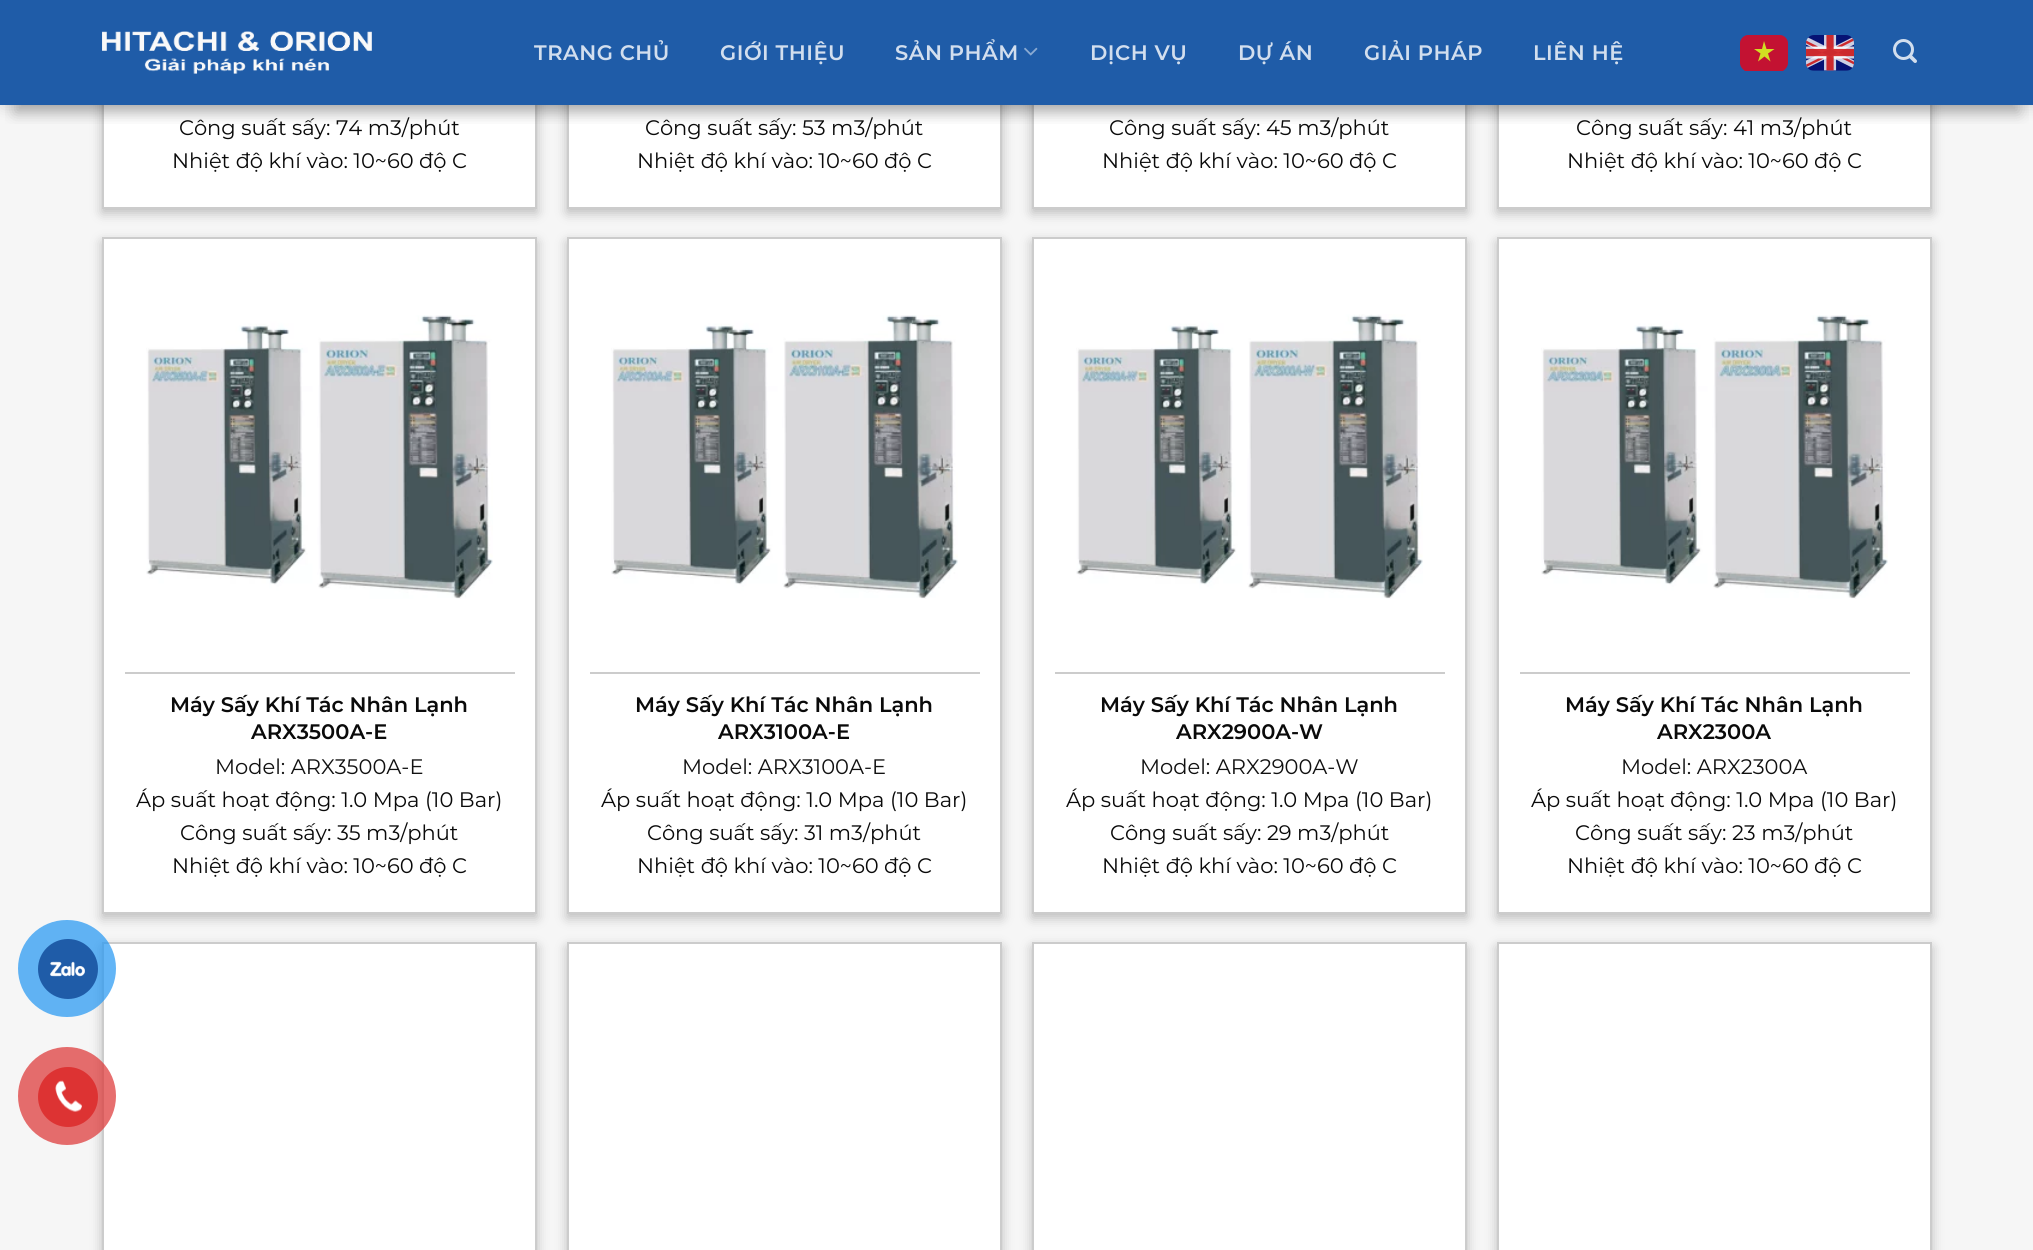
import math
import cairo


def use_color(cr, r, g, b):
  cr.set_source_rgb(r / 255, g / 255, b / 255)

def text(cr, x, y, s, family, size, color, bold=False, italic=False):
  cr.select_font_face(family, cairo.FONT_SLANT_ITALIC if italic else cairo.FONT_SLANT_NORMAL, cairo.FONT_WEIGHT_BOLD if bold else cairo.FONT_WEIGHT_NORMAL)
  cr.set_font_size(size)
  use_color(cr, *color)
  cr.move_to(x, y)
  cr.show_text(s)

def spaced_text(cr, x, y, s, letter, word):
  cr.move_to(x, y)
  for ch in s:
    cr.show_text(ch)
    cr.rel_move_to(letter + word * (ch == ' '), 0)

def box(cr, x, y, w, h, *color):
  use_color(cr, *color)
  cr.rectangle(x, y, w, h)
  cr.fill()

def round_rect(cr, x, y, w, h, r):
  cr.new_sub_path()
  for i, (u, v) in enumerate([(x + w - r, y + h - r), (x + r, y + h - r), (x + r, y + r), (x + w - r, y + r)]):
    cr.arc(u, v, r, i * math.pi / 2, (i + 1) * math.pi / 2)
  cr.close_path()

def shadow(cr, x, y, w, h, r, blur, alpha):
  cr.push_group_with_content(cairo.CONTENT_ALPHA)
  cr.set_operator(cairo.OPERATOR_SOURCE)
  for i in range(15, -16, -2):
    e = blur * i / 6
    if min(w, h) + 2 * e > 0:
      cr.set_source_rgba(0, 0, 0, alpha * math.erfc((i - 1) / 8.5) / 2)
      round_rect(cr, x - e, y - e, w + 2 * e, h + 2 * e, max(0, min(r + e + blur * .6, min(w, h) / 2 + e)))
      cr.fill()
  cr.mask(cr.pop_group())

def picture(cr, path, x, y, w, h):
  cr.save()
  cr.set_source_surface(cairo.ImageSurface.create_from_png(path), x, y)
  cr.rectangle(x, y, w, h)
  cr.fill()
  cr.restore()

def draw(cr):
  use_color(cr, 246, 246, 246)
  cr.paint()
  use_color(cr, 0, 0, 0)
  shadow(cr, 102, -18, 435, 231, 0, 6, 0.24)
  box(cr, 104, 105, 431, 102, 255, 255, 255)
  cr.rectangle(103, -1, 433, 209)
  use_color(cr, 204, 204, 204)
  cr.stroke()
  use_color(cr, 0, 0, 0)
  shadow(cr, 567, -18, 435, 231, 0, 6, 0.24)
  box(cr, 569, 105, 431, 102, 255, 255, 255)
  cr.rectangle(568, -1, 433, 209)
  use_color(cr, 204, 204, 204)
  cr.stroke()
  use_color(cr, 0, 0, 0)
  shadow(cr, 1032, -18, 435, 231, 0, 6, 0.24)
  box(cr, 1034, 105, 431, 102, 255, 255, 255)
  cr.rectangle(1033, -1, 433, 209)
  use_color(cr, 204, 204, 204)
  cr.stroke()
  use_color(cr, 0, 0, 0)
  shadow(cr, 1497, -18, 435, 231, 0, 6, 0.24)
  box(cr, 1499, 105, 431, 102, 255, 255, 255)
  cr.rectangle(1498, -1, 433, 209)
  use_color(cr, 204, 204, 204)
  cr.stroke()
  use_color(cr, 0, 0, 0)
  shadow(cr, 2, 2, 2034, 105, 0, 7.5, 0.15)
  box(cr, 0, 0, 2033, 105, 31, 92, 168)
  cr.save()
  cr.rectangle(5, 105, 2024, 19)
  cr.clip()
  use_color(cr, 0, 0, 0)
  shadow(cr, 15, 38, 2004, 75, 0, 7.5, 0.25)
  cr.restore()
  picture(cr, "img_01.png", 102, 31, 270, 43)
  picture(cr, "img_02.png", 1024, 47, 14, 9)
  use_color(cr, 195, 18, 50)
  cr.new_path()
  cr.move_to(1748, 35)
  cr.curve_to(1744, 35, 1740, 39, 1740, 43)
  cr.line_to(1740, 63)
  cr.curve_to(1740, 66, 1742, 69, 1745, 71)
  cr.line_to(1783, 71)
  cr.curve_to(1786, 69, 1788, 66, 1788, 63)
  cr.line_to(1788, 43)
  cr.curve_to(1788, 39, 1784, 35, 1780, 35)
  cr.close_path()
  cr.fill()
  use_color(cr, 210, 222, 34)
  cr.set_fill_rule(cairo.FILL_RULE_EVEN_ODD)
  cr.new_path()
  cr.move_to(1770.5, 61.5)
  cr.line_to(1764.5, 56.5)
  cr.line_to(1758, 61.5)
  cr.line_to(1760.5, 53.5)
  cr.line_to(1754, 49)
  cr.line_to(1762, 49)
  cr.line_to(1764, 41)
  cr.line_to(1766.5, 49)
  cr.line_to(1774.5, 49)
  cr.line_to(1768, 53.5)
  cr.close_path()
  cr.fill()
  picture(cr, "img_03.png", 1806, 35, 48, 36)
  picture(cr, "img_04.png", 1893, 39, 24, 24)
  use_color(cr, 0, 0, 0)
  shadow(cr, 102, 242, 435, 676, 0, 6, 0.24)
  use_color(cr, 255, 255, 255)
  cr.rectangle(103, 238, 433, 675)
  cr.fill_preserve()
  use_color(cr, 204, 204, 204)
  cr.stroke()
  picture(cr, "img_05.png", 146, 315, 347, 284)
  box(cr, 125, 672, 390, 2, 204, 204, 204)
  use_color(cr, 0, 0, 0)
  shadow(cr, 567, 242, 435, 676, 0, 6, 0.24)
  use_color(cr, 255, 255, 255)
  cr.rectangle(568, 238, 433, 675)
  cr.fill_preserve()
  use_color(cr, 204, 204, 204)
  cr.stroke()
  picture(cr, "img_06.png", 611, 315, 347, 284)
  box(cr, 590, 672, 390, 2, 204, 204, 204)
  use_color(cr, 0, 0, 0)
  shadow(cr, 1032, 242, 435, 676, 0, 6, 0.24)
  use_color(cr, 255, 255, 255)
  cr.rectangle(1033, 238, 433, 675)
  cr.fill_preserve()
  use_color(cr, 204, 204, 204)
  cr.stroke()
  picture(cr, "img_07.png", 1076, 314, 347, 285)
  box(cr, 1055, 672, 390, 2, 204, 204, 204)
  use_color(cr, 0, 0, 0)
  shadow(cr, 1497, 242, 435, 676, 0, 6, 0.24)
  use_color(cr, 255, 255, 255)
  cr.rectangle(1498, 238, 433, 675)
  cr.fill_preserve()
  use_color(cr, 204, 204, 204)
  cr.stroke()
  picture(cr, "img_08.png", 1541, 315, 347, 284)
  box(cr, 1520, 672, 390, 2, 204, 204, 204)
  use_color(cr, 0, 0, 0)
  shadow(cr, 102, 947, 435, 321, 0, 6, 0.24)
  use_color(cr, 255, 255, 255)
  cr.rectangle(103, 943, 433, 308)
  cr.fill_preserve()
  use_color(cr, 204, 204, 204)
  cr.stroke()
  use_color(cr, 0, 0, 0)
  shadow(cr, 567, 947, 435, 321, 0, 6, 0.24)
  use_color(cr, 255, 255, 255)
  cr.rectangle(568, 943, 433, 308)
  cr.fill_preserve()
  use_color(cr, 204, 204, 204)
  cr.stroke()
  use_color(cr, 0, 0, 0)
  shadow(cr, 1032, 947, 435, 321, 0, 6, 0.24)
  use_color(cr, 255, 255, 255)
  cr.rectangle(1033, 943, 433, 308)
  cr.fill_preserve()
  use_color(cr, 204, 204, 204)
  cr.stroke()
  use_color(cr, 0, 0, 0)
  shadow(cr, 1497, 947, 435, 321, 0, 6, 0.24)
  use_color(cr, 255, 255, 255)
  cr.rectangle(1498, 943, 433, 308)
  cr.fill_preserve()
  use_color(cr, 204, 204, 204)
  cr.stroke()
  cr.set_source_rgba(0.129, 0.588, 0.953, 0.7)
  round_rect(cr, 18, 920, 98, 97, 48.5)
  cr.fill()
  use_color(cr, 31, 92, 168)
  cr.arc(68, 969, 30, 0, 2 * math.pi)
  cr.fill()
  picture(cr, "img_09.png", 50, 961, 35, 16)
  cr.set_source_rgba(0.867, 0.2, 0.2, 0.7)
  cr.arc(67, 1096, 49, 0, 2 * math.pi)
  cr.fill()
  use_color(cr, 221, 51, 51)
  cr.arc(68, 1097, 30, 0, 2 * math.pi)
  cr.fill()
  picture(cr, "img_10.png", 55, 1080, 27, 32)
  cr.select_font_face("Montserrat SemiBold")
  cr.set_font_size(21)
  use_color(cr, 210, 222, 238)
  spaced_text(cr, 534, 60, "TRANG CHỦ", 0.5, 0)
  spaced_text(cr, 720, 60, "GIỚI THIỆU", 0.5, 0)
  spaced_text(cr, 895, 60, "SẢN PHẨM", 0.5, 0)
  spaced_text(cr, 1090, 60, "DỊCH VỤ", 0.5, 0)
  spaced_text(cr, 1238, 60, "DỰ ÁN", 0.5, 0)
  spaced_text(cr, 1364, 60, "GIẢI PHÁP", 0.5, 0)
  spaced_text(cr, 1533, 60, "LIÊN HỆ", 0.5, 0)
  text(cr, 179, 135, "Công suất sấy: 74 m3/phút", "Montserrat", 21, (10, 10, 10))
  text(cr, 172, 168, "Nhiệt độ khí vào: 10~60 độ C", "Montserrat", 21, (10, 10, 10))
  text(cr, 645, 135, "Công suất sấy: 53 m3/phút", "Montserrat", 21, (10, 10, 10))
  text(cr, 637, 168, "Nhiệt độ khí vào: 10~60 độ C", "Montserrat", 21, (10, 10, 10))
  text(cr, 1109, 135, "Công suất sấy: 45 m3/phút", "Montserrat", 21, (10, 10, 10))
  text(cr, 1102, 168, "Nhiệt độ khí vào: 10~60 độ C", "Montserrat", 21, (10, 10, 10))
  text(cr, 1576, 135, "Công suất sấy: 41 m3/phút", "Montserrat", 21, (10, 10, 10))
  text(cr, 1567, 168, "Nhiệt độ khí vào: 10~60 độ C", "Montserrat", 21, (10, 10, 10))
  text(cr, 170, 712, "Máy Sấy Khí Tác Nhân Lạnh", "Montserrat SemiBold", 21, (10, 10, 10))
  text(cr, 251, 739, "ARX3500A-E", "Montserrat SemiBold", 21, (10, 10, 10))
  text(cr, 215, 774, "Model: ARX3500A-E", "Montserrat", 21, (17, 17, 17))
  text(cr, 136, 807, "Áp suất hoạt động: 1.0 Mpa (10 Bar)", "Montserrat", 21, (10, 10, 10))
  text(cr, 180, 840, "Công suất sấy: 35 m3/phút", "Montserrat", 21, (10, 10, 10))
  text(cr, 172, 873, "Nhiệt độ khí vào: 10~60 độ C", "Montserrat", 21, (10, 10, 10))
  text(cr, 635, 712, "Máy Sấy Khí Tác Nhân Lạnh", "Montserrat SemiBold", 21, (10, 10, 10))
  text(cr, 718, 739, "ARX3100A-E", "Montserrat SemiBold", 21, (10, 10, 10))
  text(cr, 682, 774, "Model: ARX3100A-E", "Montserrat", 21, (17, 17, 17))
  text(cr, 601, 807, "Áp suất hoạt động: 1.0 Mpa (10 Bar)", "Montserrat", 21, (10, 10, 10))
  text(cr, 647, 840, "Công suất sấy: 31 m3/phút", "Montserrat", 21, (10, 10, 10))
  text(cr, 637, 873, "Nhiệt độ khí vào: 10~60 độ C", "Montserrat", 21, (10, 10, 10))
  text(cr, 1100, 712, "Máy Sấy Khí Tác Nhân Lạnh", "Montserrat SemiBold", 21, (10, 10, 10))
  text(cr, 1176, 739, "ARX2900A-W", "Montserrat SemiBold", 21, (10, 10, 10))
  text(cr, 1140, 774, "Model: ARX2900A-W", "Montserrat", 21, (17, 17, 17))
  text(cr, 1066, 807, "Áp suất hoạt động: 1.0 Mpa (10 Bar)", "Montserrat", 21, (10, 10, 10))
  text(cr, 1110, 840, "Công suất sấy: 29 m3/phút", "Montserrat", 21, (10, 10, 10))
  text(cr, 1102, 873, "Nhiệt độ khí vào: 10~60 độ C", "Montserrat", 21, (10, 10, 10))
  text(cr, 1565, 712, "Máy Sấy Khí Tác Nhân Lạnh", "Montserrat SemiBold", 21, (10, 10, 10))
  text(cr, 1657, 739, "ARX2300A", "Montserrat SemiBold", 21, (10, 10, 10))
  text(cr, 1621, 774, "Model: ARX2300A", "Montserrat", 21, (17, 17, 17))
  text(cr, 1531, 807, "Áp suất hoạt động: 1.0 Mpa (10 Bar)", "Montserrat", 21, (10, 10, 10))
  text(cr, 1575, 840, "Công suất sấy: 23 m3/phút", "Montserrat", 21, (10, 10, 10))
  text(cr, 1567, 873, "Nhiệt độ khí vào: 10~60 độ C", "Montserrat", 21, (10, 10, 10))


surface = cairo.ImageSurface(cairo.FORMAT_RGB24, 2033, 1250)
cr = cairo.Context(surface)
options = cairo.FontOptions()
options.set_hint_metrics(cairo.HINT_METRICS_OFF)
options.set_hint_style(cairo.HINT_STYLE_NONE)
cr.set_font_options(options)
cr.set_miter_limit(4)
draw(cr)
surface.write_to_png("out.png")
